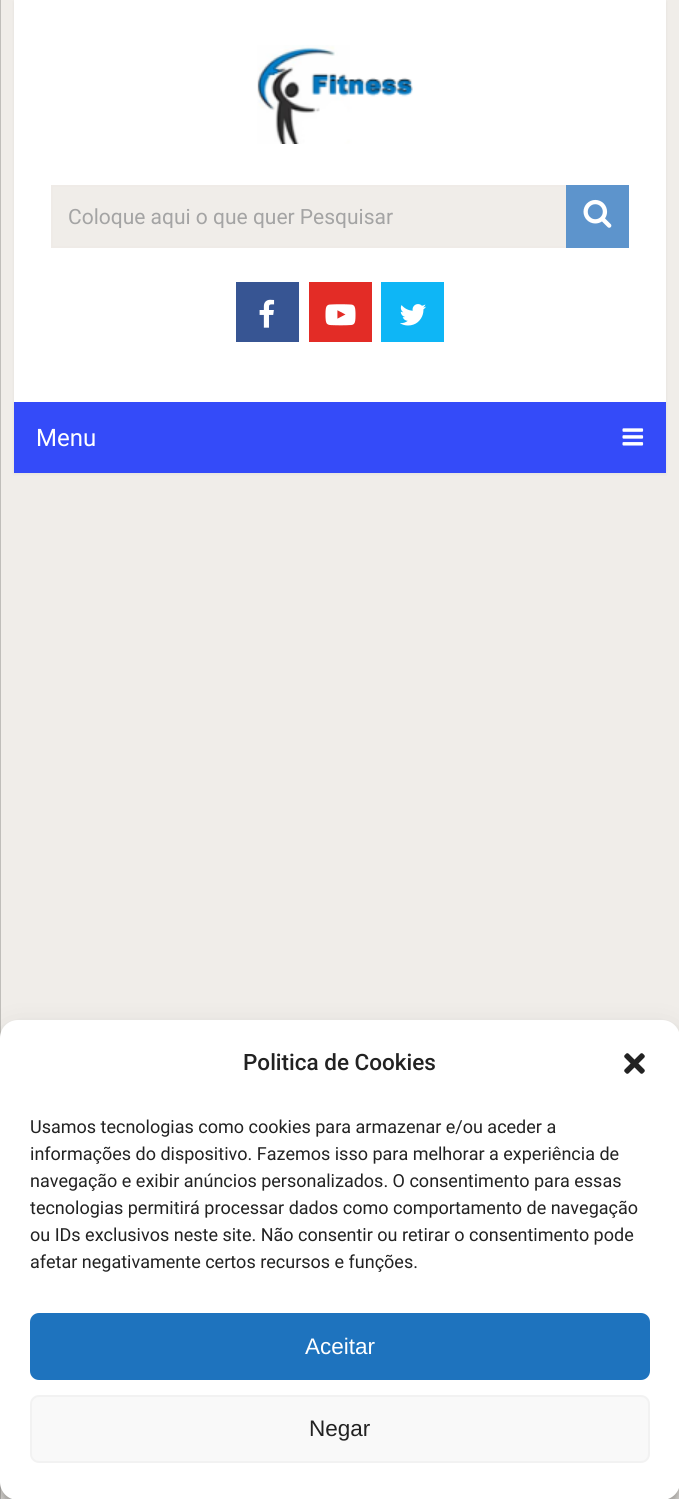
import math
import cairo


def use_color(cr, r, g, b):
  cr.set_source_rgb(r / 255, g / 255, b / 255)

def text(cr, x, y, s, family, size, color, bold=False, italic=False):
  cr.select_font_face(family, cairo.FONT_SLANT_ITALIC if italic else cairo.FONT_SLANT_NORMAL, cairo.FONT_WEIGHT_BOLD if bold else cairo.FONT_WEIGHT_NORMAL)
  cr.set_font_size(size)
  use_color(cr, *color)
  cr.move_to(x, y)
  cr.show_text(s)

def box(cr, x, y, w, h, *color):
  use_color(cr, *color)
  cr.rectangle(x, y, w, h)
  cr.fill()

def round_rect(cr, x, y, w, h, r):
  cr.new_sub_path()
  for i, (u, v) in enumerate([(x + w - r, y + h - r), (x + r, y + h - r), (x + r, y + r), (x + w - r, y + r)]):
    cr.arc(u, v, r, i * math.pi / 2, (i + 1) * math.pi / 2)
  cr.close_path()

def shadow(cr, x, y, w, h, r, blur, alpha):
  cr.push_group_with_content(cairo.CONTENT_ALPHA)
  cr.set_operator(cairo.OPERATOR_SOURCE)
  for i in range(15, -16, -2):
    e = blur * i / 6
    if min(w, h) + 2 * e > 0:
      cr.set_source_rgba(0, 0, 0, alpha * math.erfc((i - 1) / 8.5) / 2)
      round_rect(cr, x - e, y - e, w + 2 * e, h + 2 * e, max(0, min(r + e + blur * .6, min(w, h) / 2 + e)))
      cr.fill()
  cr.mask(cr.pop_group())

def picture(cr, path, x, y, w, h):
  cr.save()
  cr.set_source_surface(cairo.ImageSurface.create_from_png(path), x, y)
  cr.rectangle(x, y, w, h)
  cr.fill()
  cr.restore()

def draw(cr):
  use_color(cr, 240, 237, 233)
  cr.paint()
  use_color(cr, 0, 0, 0)
  shadow(cr, 14, 2, 652, 472, 0, 1.5, 0.05)
  box(cr, 14, 0, 652, 402, 255, 255, 255)
  picture(cr, "img_01.png", 257, 45, 156, 99)
  box(cr, 53, 187, 513, 59, 240, 237, 233)
  cr.rectangle(52, 186, 576, 61)
  use_color(cr, 239, 235, 231)
  cr.stroke()
  box(cr, 566, 185, 63, 63, 93, 148, 204)
  picture(cr, "img_02.png", 583, 199, 29, 29)
  box(cr, 236, 282, 63, 60, 55, 85, 147)
  picture(cr, "img_03.png", 259, 299, 16, 29)
  box(cr, 309, 282, 63, 60, 227, 44, 38)
  picture(cr, "img_04.png", 325, 304, 31, 22)
  box(cr, 381, 282, 63, 60, 14, 182, 246)
  picture(cr, "img_05.png", 400, 304, 26, 22)
  box(cr, 14, 402, 652, 71, 52, 75, 249)
  box(cr, 0, 0, 1, 1499, 192, 190, 186)
  picture(cr, "img_06.png", 622, 428, 22, 18)
  use_color(cr, 0, 0, 0)
  shadow(cr, 0, 1029, 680, 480, 18, 4.5, 0.23)
  shadow(cr, 0, 1035, 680, 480, 18, 15, 0.19)
  use_color(cr, 255, 255, 255)
  round_rect(cr, 0, 1020, 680, 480, 18)
  cr.fill()
  picture(cr, "img_07.png", 624, 1053, 21, 21)
  use_color(cr, 30, 115, 190)
  round_rect(cr, 31, 1314, 618, 65, 8)
  cr.fill_preserve()
  cr.stroke()
  use_color(cr, 249, 249, 249)
  round_rect(cr, 31, 1396, 618, 66, 8)
  cr.fill_preserve()
  use_color(cr, 242, 242, 242)
  cr.stroke()
  cr.save()
  cr.rectangle(53, 204, 553, 24)
  cr.clip()
  text(cr, 68, 224, "Coloque aqui o que quer Pesquisar", "Roboto", 21, (164, 164, 164))
  cr.restore()
  text(cr, 36, 446, "Menu", "Roboto", 24, (255, 255, 255))
  text(cr, 243, 1070, "Politica de Cookies", "Roboto Medium", 22.5, (34, 34, 34))
  text(cr, 30, 1133, "Usamos tecnologias como cookies para armazenar e/ou aceder a", "Roboto", 18, (34, 34, 34))
  text(cr, 30, 1160, "informações do dispositivo. Fazemos isso para melhorar a experiência de", "Roboto", 18, (34, 34, 34))
  text(cr, 30, 1187, "navegação e exibir anúncios personalizados. O consentimento para essas", "Roboto", 18, (34, 34, 34))
  text(cr, 30, 1214, "tecnologias permitirá processar dados como comportamento de navegação", "Roboto", 18, (34, 34, 34))
  text(cr, 30, 1241, "ou IDs exclusivos neste site. Não consentir ou retirar o consentimento pode", "Roboto", 18, (34, 34, 34))
  text(cr, 30, 1268, "afetar negativamente certos recursos e funções.", "Roboto", 18, (34, 34, 34))
  text(cr, 305, 1354, "Aceitar", "Liberation Sans", 22.5, (255, 255, 255))
  text(cr, 309, 1436, "Negar", "Liberation Sans", 22.5, (34, 34, 34))


surface = cairo.ImageSurface(cairo.FORMAT_RGB24, 679, 1499)
cr = cairo.Context(surface)
options = cairo.FontOptions()
options.set_hint_metrics(cairo.HINT_METRICS_OFF)
options.set_hint_style(cairo.HINT_STYLE_NONE)
cr.set_font_options(options)
cr.set_miter_limit(4)
draw(cr)
surface.write_to_png("out.png")
